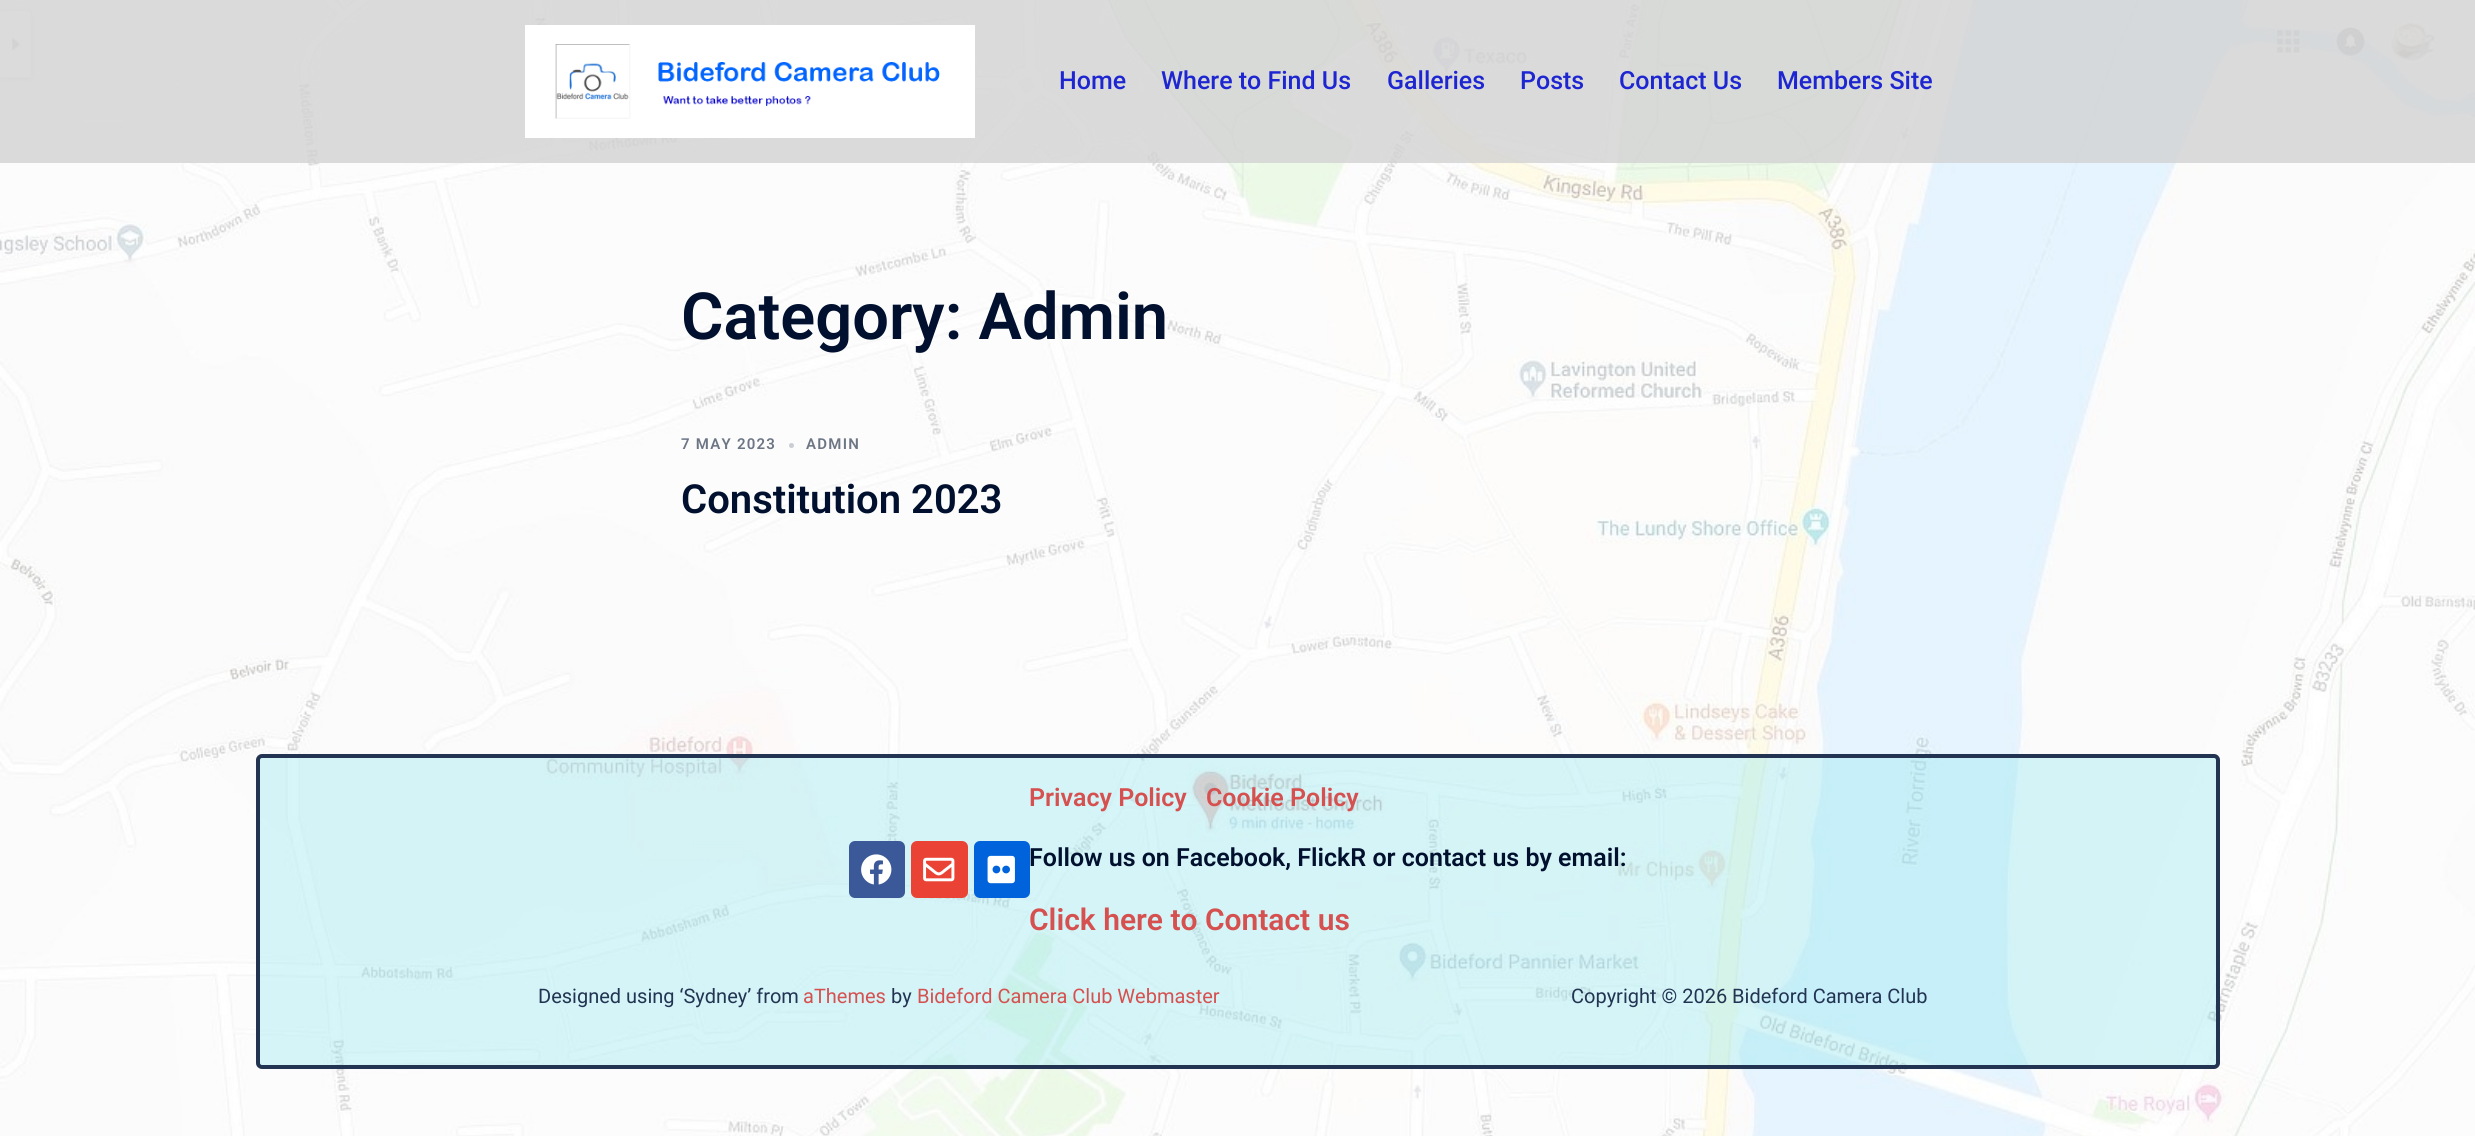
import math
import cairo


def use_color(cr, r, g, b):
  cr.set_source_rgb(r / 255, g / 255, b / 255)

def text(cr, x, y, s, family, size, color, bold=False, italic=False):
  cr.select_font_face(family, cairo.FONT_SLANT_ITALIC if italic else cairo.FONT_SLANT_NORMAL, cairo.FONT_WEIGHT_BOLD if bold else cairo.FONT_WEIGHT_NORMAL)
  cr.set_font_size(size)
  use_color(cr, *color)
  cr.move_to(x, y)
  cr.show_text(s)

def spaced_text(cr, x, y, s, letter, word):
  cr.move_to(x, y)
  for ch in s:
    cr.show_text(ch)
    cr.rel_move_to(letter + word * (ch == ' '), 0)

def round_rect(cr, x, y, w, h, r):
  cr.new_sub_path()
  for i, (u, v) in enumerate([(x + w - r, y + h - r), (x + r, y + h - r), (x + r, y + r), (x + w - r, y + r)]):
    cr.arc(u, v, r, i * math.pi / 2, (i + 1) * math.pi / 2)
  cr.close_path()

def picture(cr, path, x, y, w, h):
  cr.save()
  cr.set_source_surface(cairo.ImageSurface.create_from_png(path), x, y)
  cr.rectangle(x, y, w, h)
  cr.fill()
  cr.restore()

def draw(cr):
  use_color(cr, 255, 255, 255)
  cr.paint()
  picture(cr, "img_01.png", 0, 0, 2475, 1136)
  cr.set_source_rgba(0.824, 0.824, 0.824, 0.8)
  cr.rectangle(0, 0, 2475, 163)
  cr.fill()
  picture(cr, "img_02.png", 525, 25, 450, 113)
  use_color(cr, 202, 205, 211)
  cr.arc(791.5, 445.5, 2.5, 0, 2 * math.pi)
  cr.fill()
  cr.set_source_rgba(0.537, 0.894, 0.929, 0.35)
  round_rect(cr, 258, 756, 1960, 311, 4)
  cr.fill_preserve()
  use_color(cr, 35, 52, 82)
  cr.set_line_width(4)
  cr.stroke()
  use_color(cr, 59, 89, 152)
  round_rect(cr, 849, 841, 56, 57, 6)
  cr.fill()
  picture(cr, "img_03.png", 861, 854, 31, 31)
  use_color(cr, 234, 67, 53)
  round_rect(cr, 911, 841, 57, 57, 6)
  cr.fill()
  picture(cr, "img_04.png", 923, 857, 32, 25)
  use_color(cr, 0, 99, 220)
  round_rect(cr, 974, 841, 56, 57, 6)
  cr.fill()
  picture(cr, "img_05.png", 987, 855, 28, 29)
  text(cr, 1059, 89, "Home", "Roboto Medium", 25, (29, 38, 209))
  text(cr, 1161, 89, "Where to Find Us", "Roboto Medium", 25, (29, 38, 209))
  text(cr, 1387, 89, "Galleries", "Roboto Medium", 25, (29, 38, 209))
  text(cr, 1520, 89, "Posts", "Roboto Medium", 25, (29, 38, 209))
  text(cr, 1619, 89, "Contact Us", "Roboto Medium", 25, (29, 38, 209))
  text(cr, 1777, 89, "Members Site", "Roboto Medium", 25, (29, 38, 209))
  text(cr, 681, 339, "Category: Admin", "Roboto SemiBold", 65, (0, 16, 46))
  cr.set_font_size(15)
  use_color(cr, 109, 118, 133)
  spaced_text(cr, 681, 449, "7 MAY 2023", 1.25, 0)
  spaced_text(cr, 806, 449, "ADMIN", 1.25, 0)
  text(cr, 681, 513, "Constitution 2023", "Roboto SemiBold", 40, (0, 16, 46))
  text(cr, 1029, 806, "Privacy Policy", "Roboto SemiBold", 25, (214, 80, 80))
  text(cr, 1206, 806, "Cookie Policy", "Roboto SemiBold", 25, (214, 80, 80))
  text(cr, 1029, 866, "Follow us on Facebook, FlickR or contact us by email:", "Roboto SemiBold", 25, (0, 16, 46))
  text(cr, 1029, 930, "Click here to Contact us", "Roboto SemiBold", 30, (214, 80, 80))
  text(cr, 538, 1003, "Designed using ‘Sydney’ from", "Roboto", 20, (35, 52, 82))
  text(cr, 803, 1003, "aThemes", "Roboto", 20, (214, 80, 80))
  text(cr, 891, 1003, "by", "Roboto", 20, (35, 52, 82))
  text(cr, 917, 1003, "Bideford Camera Club Webmaster", "Roboto", 20, (214, 80, 80))
  text(cr, 1571, 1003, "Copyright © 2026 Bideford Camera Club", "Roboto", 20, (35, 52, 82))


surface = cairo.ImageSurface(cairo.FORMAT_RGB24, 2475, 1136)
cr = cairo.Context(surface)
options = cairo.FontOptions()
options.set_hint_metrics(cairo.HINT_METRICS_OFF)
options.set_hint_style(cairo.HINT_STYLE_NONE)
cr.set_font_options(options)
cr.set_miter_limit(4)
draw(cr)
surface.write_to_png("out.png")
